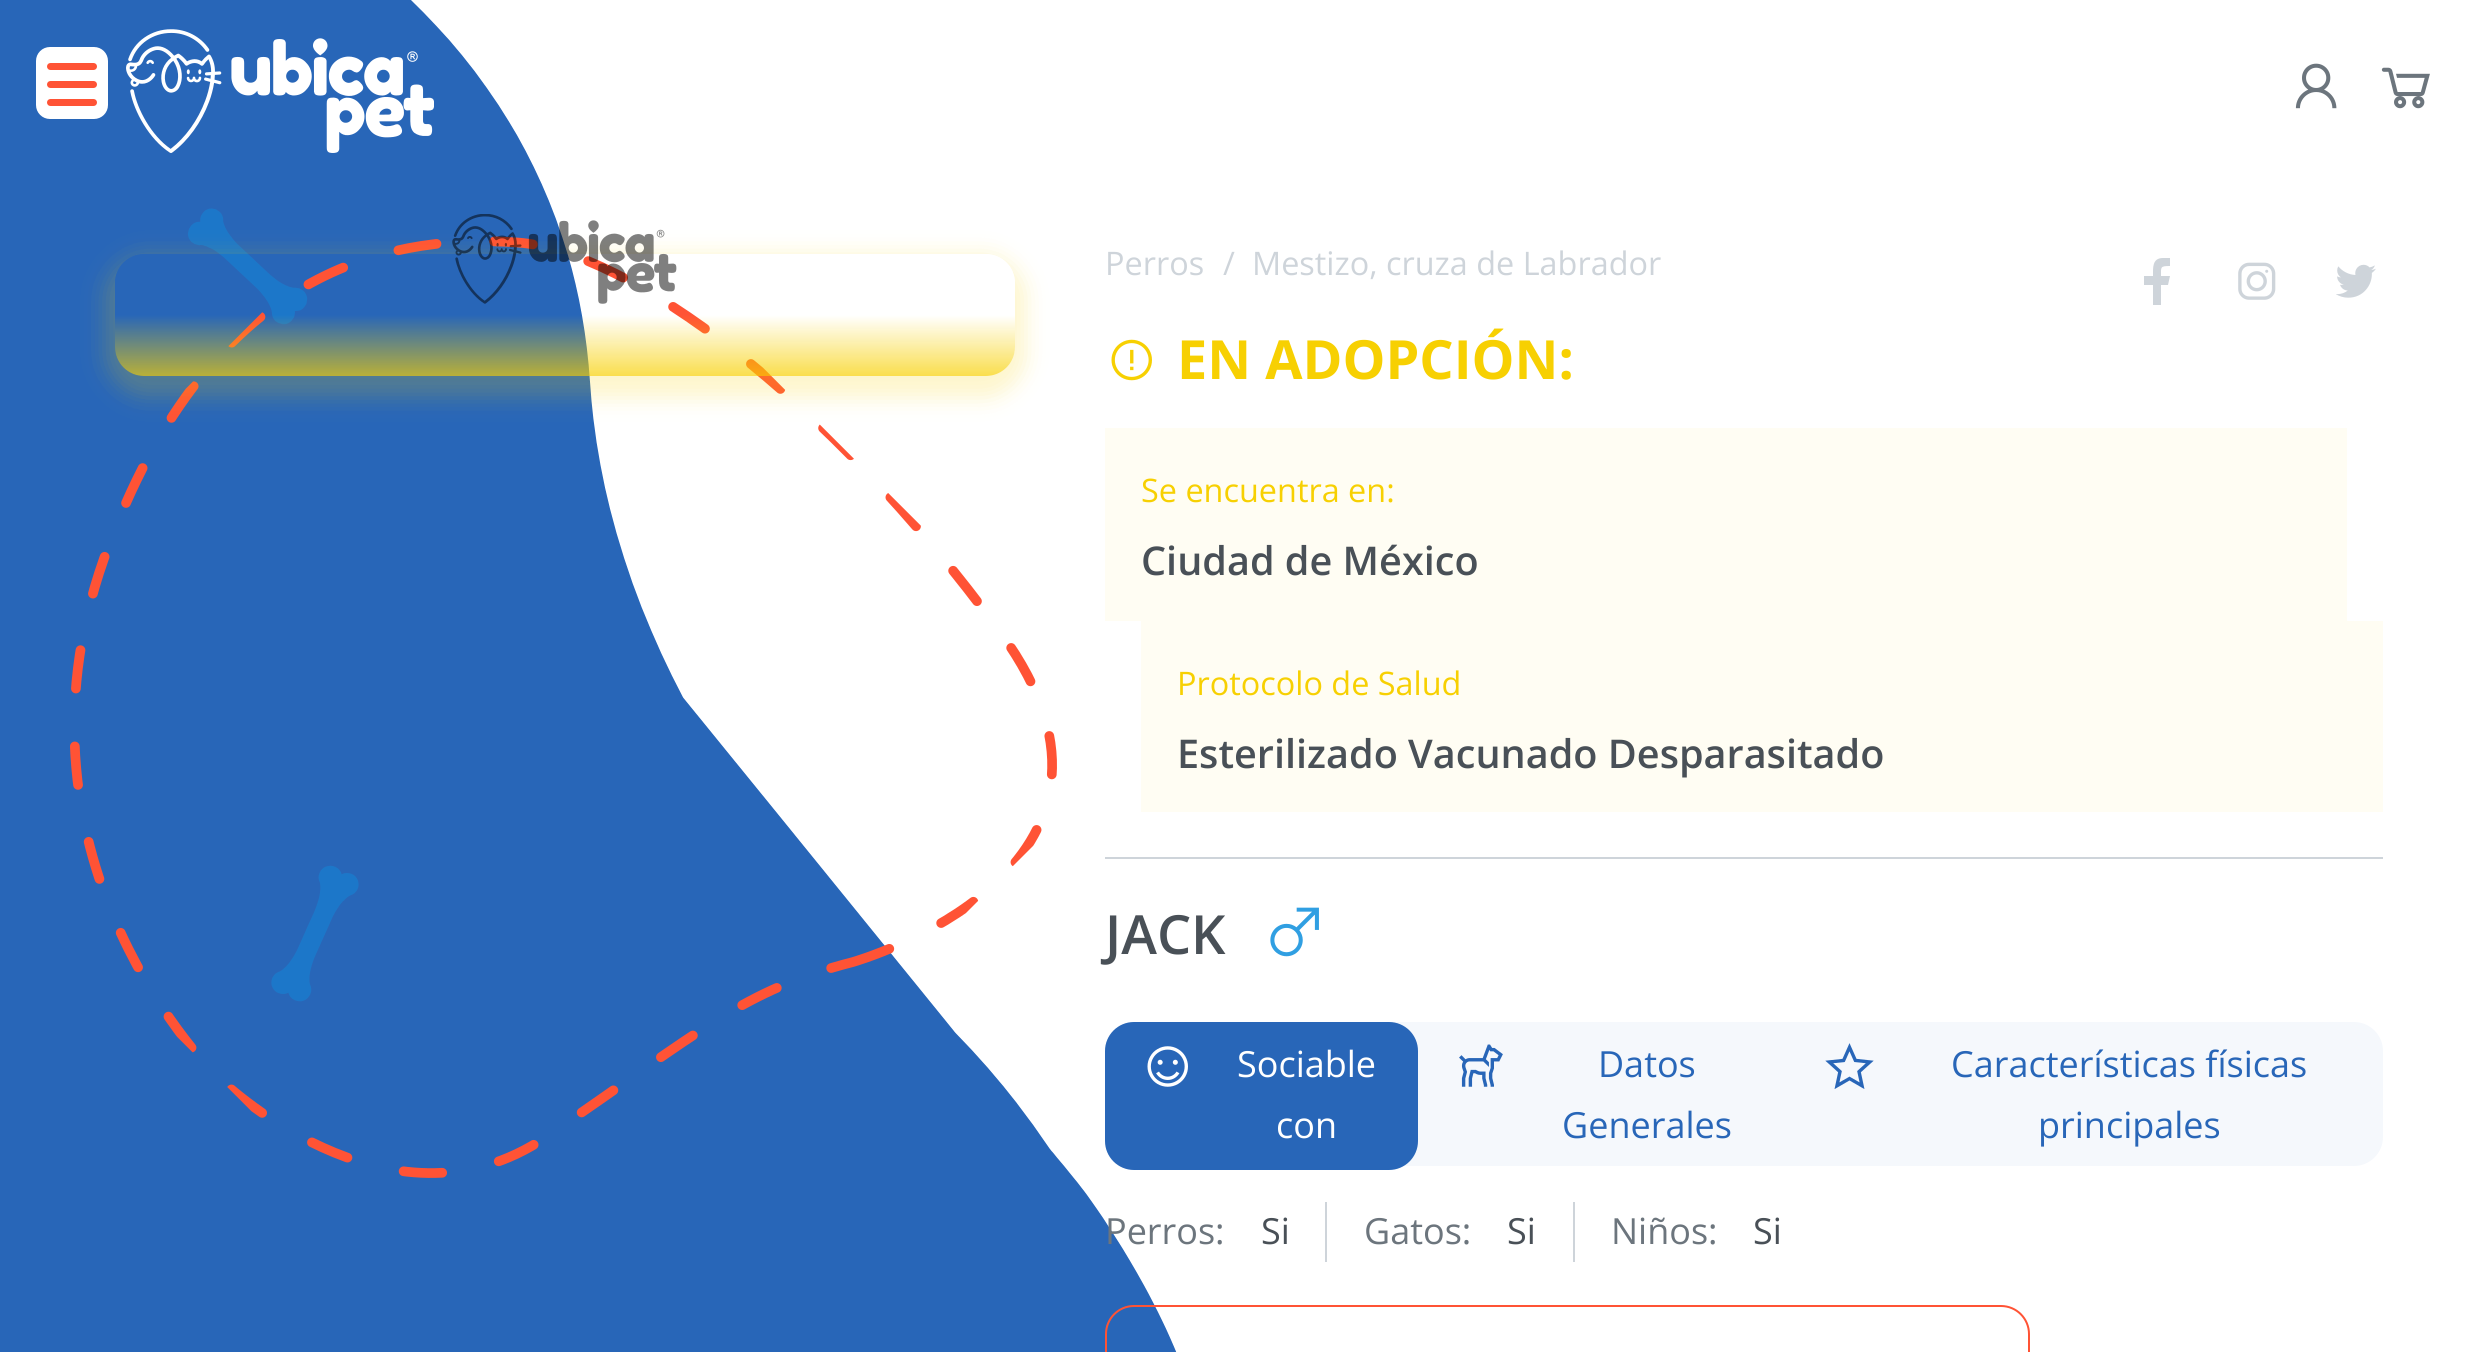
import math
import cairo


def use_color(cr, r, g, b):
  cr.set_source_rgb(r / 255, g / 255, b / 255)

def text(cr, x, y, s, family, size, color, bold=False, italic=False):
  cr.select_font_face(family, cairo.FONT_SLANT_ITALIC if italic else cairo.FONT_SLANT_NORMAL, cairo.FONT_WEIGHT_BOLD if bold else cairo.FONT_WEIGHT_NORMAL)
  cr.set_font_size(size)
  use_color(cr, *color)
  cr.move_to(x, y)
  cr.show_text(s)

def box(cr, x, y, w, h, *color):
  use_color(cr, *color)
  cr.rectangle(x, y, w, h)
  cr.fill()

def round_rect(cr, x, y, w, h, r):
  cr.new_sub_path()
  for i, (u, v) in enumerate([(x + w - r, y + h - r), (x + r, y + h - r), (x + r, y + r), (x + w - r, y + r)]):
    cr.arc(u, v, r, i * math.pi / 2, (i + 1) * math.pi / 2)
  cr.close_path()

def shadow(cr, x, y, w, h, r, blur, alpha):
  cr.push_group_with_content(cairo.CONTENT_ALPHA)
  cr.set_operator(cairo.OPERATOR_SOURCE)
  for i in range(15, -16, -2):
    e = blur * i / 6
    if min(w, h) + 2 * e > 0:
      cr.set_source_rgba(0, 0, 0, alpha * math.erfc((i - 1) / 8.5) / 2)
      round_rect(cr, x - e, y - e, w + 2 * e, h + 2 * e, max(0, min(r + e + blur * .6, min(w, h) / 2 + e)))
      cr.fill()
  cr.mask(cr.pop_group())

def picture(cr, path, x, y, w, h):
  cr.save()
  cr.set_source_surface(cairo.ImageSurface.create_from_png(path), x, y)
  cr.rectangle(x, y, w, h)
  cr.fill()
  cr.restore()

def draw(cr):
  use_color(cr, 255, 255, 255)
  cr.paint()
  picture(cr, "img_04.png", 0, 0, 1177, 1352)
  use_color(cr, 255, 255, 255)
  round_rect(cr, 36, 47, 72, 72, 14)
  cr.fill()
  use_color(cr, 255, 83, 53)
  cr.new_path()
  cr.move_to(50.5, 63)
  cr.line_to(72, 63)
  cr.line_to(72, 70)
  cr.line_to(50.5, 70)
  cr.curve_to(48.5, 70, 47, 68.5, 47, 66.5)
  cr.curve_to(47, 64.5, 48.5, 63, 50.5, 63)
  cr.close_path()
  cr.fill()
  cr.new_path()
  cr.move_to(72, 63)
  cr.line_to(93.5, 63)
  cr.curve_to(95.5, 63, 97, 64.5, 97, 66.5)
  cr.curve_to(97, 68.5, 95.5, 70, 93.5, 70)
  cr.line_to(72, 70)
  cr.close_path()
  cr.fill()
  cr.new_path()
  cr.move_to(50.5, 81)
  cr.line_to(72, 81)
  cr.line_to(72, 88)
  cr.line_to(50.5, 88)
  cr.curve_to(48.5, 88, 47, 86.5, 47, 84.5)
  cr.curve_to(47, 82.5, 48.5, 81, 50.5, 81)
  cr.close_path()
  cr.fill()
  cr.new_path()
  cr.move_to(72, 81)
  cr.line_to(93.5, 81)
  cr.curve_to(95.5, 81, 97, 82.5, 97, 84.5)
  cr.curve_to(97, 86.5, 95.5, 88, 93.5, 88)
  cr.line_to(72, 88)
  cr.close_path()
  cr.fill()
  cr.new_path()
  cr.move_to(50.5, 99)
  cr.line_to(72, 99)
  cr.line_to(72, 106)
  cr.line_to(50.5, 106)
  cr.curve_to(48.5, 106, 47, 104.5, 47, 102.5)
  cr.curve_to(47, 100.5, 48.5, 99, 50.5, 99)
  cr.close_path()
  cr.fill()
  cr.new_path()
  cr.move_to(72, 99)
  cr.line_to(93.5, 99)
  cr.curve_to(95.5, 99, 97, 100.5, 97, 102.5)
  cr.curve_to(97, 104.5, 95.5, 106, 93.5, 106)
  cr.line_to(72, 106)
  cr.close_path()
  cr.fill()
  picture(cr, "img_01.png", 126, 29, 308, 124)
  picture(cr, "img_02.png", 2295, 63, 42, 46)
  picture(cr, "img_03.png", 2381, 67, 49, 42)
  cr.save()
  cr.new_path()
  cr.move_to(485, 89.5)
  cr.line_to(1137, 742)
  cr.line_to(509.5, 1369.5)
  cr.line_to(-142.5, 717)
  cr.close_path()
  cr.clip()
  cr.new_path()
  cr.move_to(853, 962)
  cr.curve_to(853, 962, 1174.5, 870.5, 1000.5, 632.5)
  cr.curve_to(826.5, 394.5, 627.5, 250.5, 517.5, 242.5)
  cr.curve_to(408, 235, 212.5, 253.5, 104, 558.5)
  cr.curve_to(-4, 863.5, 218, 1077.5, 218, 1077.5)
  cr.curve_to(218, 1077.5, 388, 1244.5, 546, 1137)
  cr.curve_to(703.5, 1029.5, 742.5, 990.5, 853, 962)
  cr.close_path()
  cr.set_line_width(9.7)
  cr.set_line_cap(cairo.LINE_CAP_ROUND)
  cr.set_dash([38.63, 57.95])
  cr.stroke()
  cr.restore()
  cr.save()
  cr.set_fill_rule(cairo.FILL_RULE_EVEN_ODD)
  cr.new_path()
  cr.move_to(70, 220)
  cr.line_to(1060, 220)
  cr.line_to(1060, 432)
  cr.line_to(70, 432)
  cr.close_path()
  cr.move_to(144, 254)
  cr.line_to(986, 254)
  cr.curve_to(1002, 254, 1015, 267, 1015, 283)
  cr.line_to(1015, 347)
  cr.curve_to(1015, 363, 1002, 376, 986, 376)
  cr.line_to(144, 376)
  cr.curve_to(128, 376, 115, 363, 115, 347)
  cr.line_to(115, 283)
  cr.curve_to(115, 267, 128, 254, 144, 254)
  cr.close_path()
  cr.clip()
  use_color(cr, 247, 208, 2)
  shadow(cr, 104, 254, 922, 144, 41, 11, 0.2)
  cr.restore()
  gradient = cairo.LinearGradient(565, 376, 565, 254)
  gradient.add_color_stop_rgba(0, 0.969, 0.816, 0.008, 0.7)
  gradient.add_color_stop_rgba(0.5, 0.969, 0.816, 0.008, 0)
  cr.set_source(gradient)
  round_rect(cr, 115, 254, 900, 122, 29)
  cr.fill()
  picture(cr, "img_05.png", 452, 214, 225, 90)
  use_color(cr, 206, 212, 218)
  cr.new_path()
  cr.move_to(2163, 258)
  cr.curve_to(2152, 258, 2153, 268, 2153, 276)
  cr.line_to(2144, 276)
  cr.line_to(2144, 285)
  cr.line_to(2153, 285)
  cr.line_to(2153, 305)
  cr.line_to(2161, 305)
  cr.line_to(2161, 285)
  cr.line_to(2168, 285)
  cr.line_to(2170, 276)
  cr.line_to(2161, 276)
  cr.curve_to(2161, 267, 2160, 266, 2170, 266)
  cr.line_to(2170, 258)
  cr.close_path()
  cr.fill()
  picture(cr, "img_06.png", 2238, 262, 38, 38)
  picture(cr, "img_07.png", 2336, 264, 40, 34)
  picture(cr, "img_08.png", 1111, 339, 41, 42)
  cr.set_source_rgba(0.969, 0.816, 0.008, 0.05)
  cr.rectangle(1105, 428, 1242, 193)
  cr.fill()
  cr.rectangle(1141, 621, 1242, 191)
  cr.fill()
  box(cr, 1105, 857, 1278, 2, 206, 212, 218)
  picture(cr, "img_09.png", 1270, 907, 49, 50)
  use_color(cr, 245, 248, 252)
  round_rect(cr, 1105, 1022, 1278, 144, 29)
  cr.fill()
  use_color(cr, 40, 102, 184)
  round_rect(cr, 1105, 1022, 313, 148, 29)
  cr.fill()
  picture(cr, "img_10.png", 1147, 1046, 41, 41)
  picture(cr, "img_11.png", 1459, 1044, 44, 43)
  picture(cr, "img_12.png", 1825, 1043, 49, 46)
  box(cr, 1325, 1202, 2, 60, 206, 212, 218)
  box(cr, 1573, 1202, 2, 60, 206, 212, 218)
  round_rect(cr, 1106, 1306, 923, 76, 28)
  use_color(cr, 255, 83, 53)
  cr.stroke()
  text(cr, 1105, 275, "Perros", "Open Sans", 32.4, (206, 212, 218))
  text(cr, 1223, 275, "/", "Open Sans", 32.4, (206, 212, 218))
  text(cr, 1252, 275, "Mestizo, cruza de Labrador", "Open Sans", 32.4, (206, 212, 218))
  text(cr, 1177, 379, "EN ADOPCIÓN:", "Open Sans", 54, (247, 208, 2), bold=True)
  text(cr, 1141, 502, "Se encuentra en:", "Open Sans", 32.4, (247, 208, 2))
  text(cr, 1141, 575, "Ciudad de México", "Open Sans SemiBold", 39.6, (73, 80, 87))
  text(cr, 1177, 695, "Protocolo de Salud", "Open Sans", 32.4, (247, 208, 2))
  text(cr, 1177, 768, "Esterilizado Vacunado Desparasitado", "Open Sans SemiBold", 39.6, (73, 80, 87))
  text(cr, 1105, 954, "JACK", "Open Sans SemiBold", 54, (73, 80, 87))
  text(cr, 1237, 1077, "Sociable", "Open Sans", 36, (255, 255, 255))
  text(cr, 1276, 1138, "con", "Open Sans", 36, (255, 255, 255))
  text(cr, 1598, 1077, "Datos", "Open Sans", 36, (40, 102, 184))
  text(cr, 1562, 1138, "Generales", "Open Sans", 36, (40, 102, 184))
  text(cr, 1951, 1077, "Características físicas", "Open Sans", 36, (40, 102, 184))
  text(cr, 2038, 1138, "principales", "Open Sans", 36, (40, 102, 184))
  text(cr, 1105, 1244, "Perros:", "Open Sans", 36, (108, 117, 125))
  text(cr, 1261, 1244, "Si", "Open Sans", 36, (73, 80, 87))
  text(cr, 1364, 1244, "Gatos:", "Open Sans", 36, (108, 117, 125))
  text(cr, 1507, 1244, "Si", "Open Sans", 36, (73, 80, 87))
  text(cr, 1611, 1244, "Niños:", "Open Sans", 36, (108, 117, 125))
  text(cr, 1753, 1244, "Si", "Open Sans", 36, (73, 80, 87))


surface = cairo.ImageSurface(cairo.FORMAT_RGB24, 2491, 1352)
cr = cairo.Context(surface)
options = cairo.FontOptions()
options.set_hint_metrics(cairo.HINT_METRICS_OFF)
options.set_hint_style(cairo.HINT_STYLE_NONE)
cr.set_font_options(options)
cr.set_miter_limit(4)
draw(cr)
surface.write_to_png("out.png")
